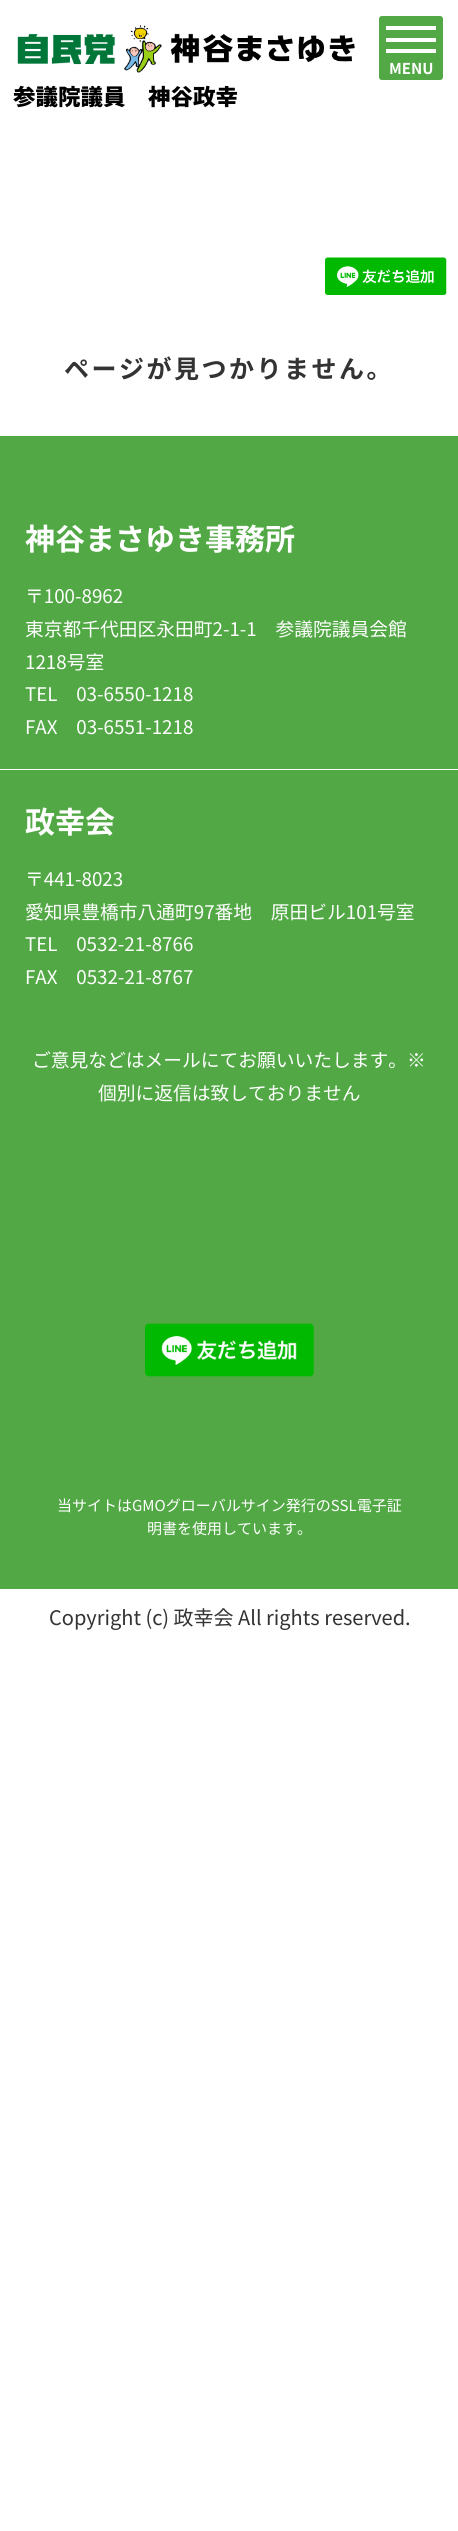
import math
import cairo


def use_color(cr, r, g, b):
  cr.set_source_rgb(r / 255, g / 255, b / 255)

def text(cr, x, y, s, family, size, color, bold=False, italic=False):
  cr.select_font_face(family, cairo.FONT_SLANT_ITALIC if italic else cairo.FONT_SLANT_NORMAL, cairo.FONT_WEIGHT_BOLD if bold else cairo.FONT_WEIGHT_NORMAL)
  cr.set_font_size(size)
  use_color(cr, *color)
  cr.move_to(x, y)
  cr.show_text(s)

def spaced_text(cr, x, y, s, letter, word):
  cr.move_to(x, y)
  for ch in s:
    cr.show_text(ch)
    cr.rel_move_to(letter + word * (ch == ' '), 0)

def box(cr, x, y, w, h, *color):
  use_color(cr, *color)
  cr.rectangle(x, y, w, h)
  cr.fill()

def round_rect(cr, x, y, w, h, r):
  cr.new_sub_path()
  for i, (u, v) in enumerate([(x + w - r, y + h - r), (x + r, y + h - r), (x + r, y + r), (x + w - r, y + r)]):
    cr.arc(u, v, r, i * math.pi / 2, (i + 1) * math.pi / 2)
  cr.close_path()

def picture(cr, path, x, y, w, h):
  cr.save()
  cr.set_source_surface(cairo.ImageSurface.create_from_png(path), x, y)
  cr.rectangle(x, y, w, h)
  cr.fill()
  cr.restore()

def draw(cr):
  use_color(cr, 255, 255, 255)
  cr.paint()
  use_color(cr, 81, 168, 68)
  round_rect(cr, 377.5, 14.5, 67, 67, 4.5)
  cr.fill_preserve()
  use_color(cr, 255, 255, 255)
  cr.set_line_width(3)
  cr.stroke()
  box(cr, 386, 26, 50, 4, 255, 255, 255)
  box(cr, 386, 38, 50, 4, 255, 255, 255)
  box(cr, 386, 49, 50, 4, 255, 255, 255)
  picture(cr, "img_01.png", 17, 25, 338, 48)
  picture(cr, "img_02.png", 325, 257, 122, 38)
  box(cr, 0, 436, 458, 1153, 81, 168, 68)
  box(cr, 0, 769, 458, 1, 255, 255, 255)
  picture(cr, "img_03.png", 145, 1323, 169, 54)
  text(cr, 389, 74, "MENU", "Noto Sans JP", 15, (255, 255, 255), bold=True)
  text(cr, 13, 105, "参議院議員　神谷政幸", "Noto Sans JP Black", 22.5, (0, 0, 0))
  cr.select_font_face("Noto Sans JP", cairo.FONT_SLANT_NORMAL, cairo.FONT_WEIGHT_BOLD)
  cr.set_font_size(25)
  use_color(cr, 51, 51, 51)
  spaced_text(cr, 64, 378, "ページが見つかりません。", 2.5, 0)
  text(cr, 25, 550, "神谷まさゆき事務所", "Noto Sans JP", 30, (255, 255, 255), bold=True)
  text(cr, 25, 603, "〒100-8962", "Noto Sans JP", 18.75, (255, 255, 255))
  text(cr, 25, 636, "東京都千代田区永田町2-1-1　参議院議員会館", "Noto Sans JP", 18.75, (255, 255, 255))
  text(cr, 25, 669, "1218号室", "Noto Sans JP", 18.75, (255, 255, 255))
  text(cr, 25, 701, "TEL　03-6550-1218", "Noto Sans JP", 18.75, (255, 255, 255))
  text(cr, 25, 734, "FAX　03-6551-1218", "Noto Sans JP", 18.75, (255, 255, 255))
  text(cr, 25, 833, "政幸会", "Noto Sans JP", 30, (255, 255, 255), bold=True)
  text(cr, 25, 886, "〒441-8023", "Noto Sans JP", 18.75, (255, 255, 255))
  text(cr, 25, 919, "愛知県豊橋市八通町97番地　原田ビル101号室", "Noto Sans JP", 18.75, (255, 255, 255))
  text(cr, 25, 951, "TEL　0532-21-8766", "Noto Sans JP", 18.75, (255, 255, 255))
  text(cr, 25, 984, "FAX　0532-21-8767", "Noto Sans JP", 18.75, (255, 255, 255))
  text(cr, 32, 1067, "ご意見などはメールにてお願いいたします。※", "Noto Sans JP", 18.75, (255, 255, 255))
  text(cr, 98, 1100, "個別に返信は致しておりません", "Noto Sans JP", 18.75, (255, 255, 255))
  text(cr, 57, 1511, "当サイトはGMOグローバルサイン発行のSSL電子証", "Noto Sans JP", 15, (255, 255, 255))
  text(cr, 147, 1534, "明書を使用しています。", "Noto Sans JP", 15, (255, 255, 255))
  text(cr, 49, 1625, "Copyright (c) 政幸会 All rights reserved.", "Noto Sans JP", 20, (51, 51, 51))


surface = cairo.ImageSurface(cairo.FORMAT_RGB24, 458, 2531)
cr = cairo.Context(surface)
options = cairo.FontOptions()
options.set_hint_metrics(cairo.HINT_METRICS_OFF)
options.set_hint_style(cairo.HINT_STYLE_NONE)
cr.set_font_options(options)
cr.set_miter_limit(4)
draw(cr)
surface.write_to_png("out.png")
